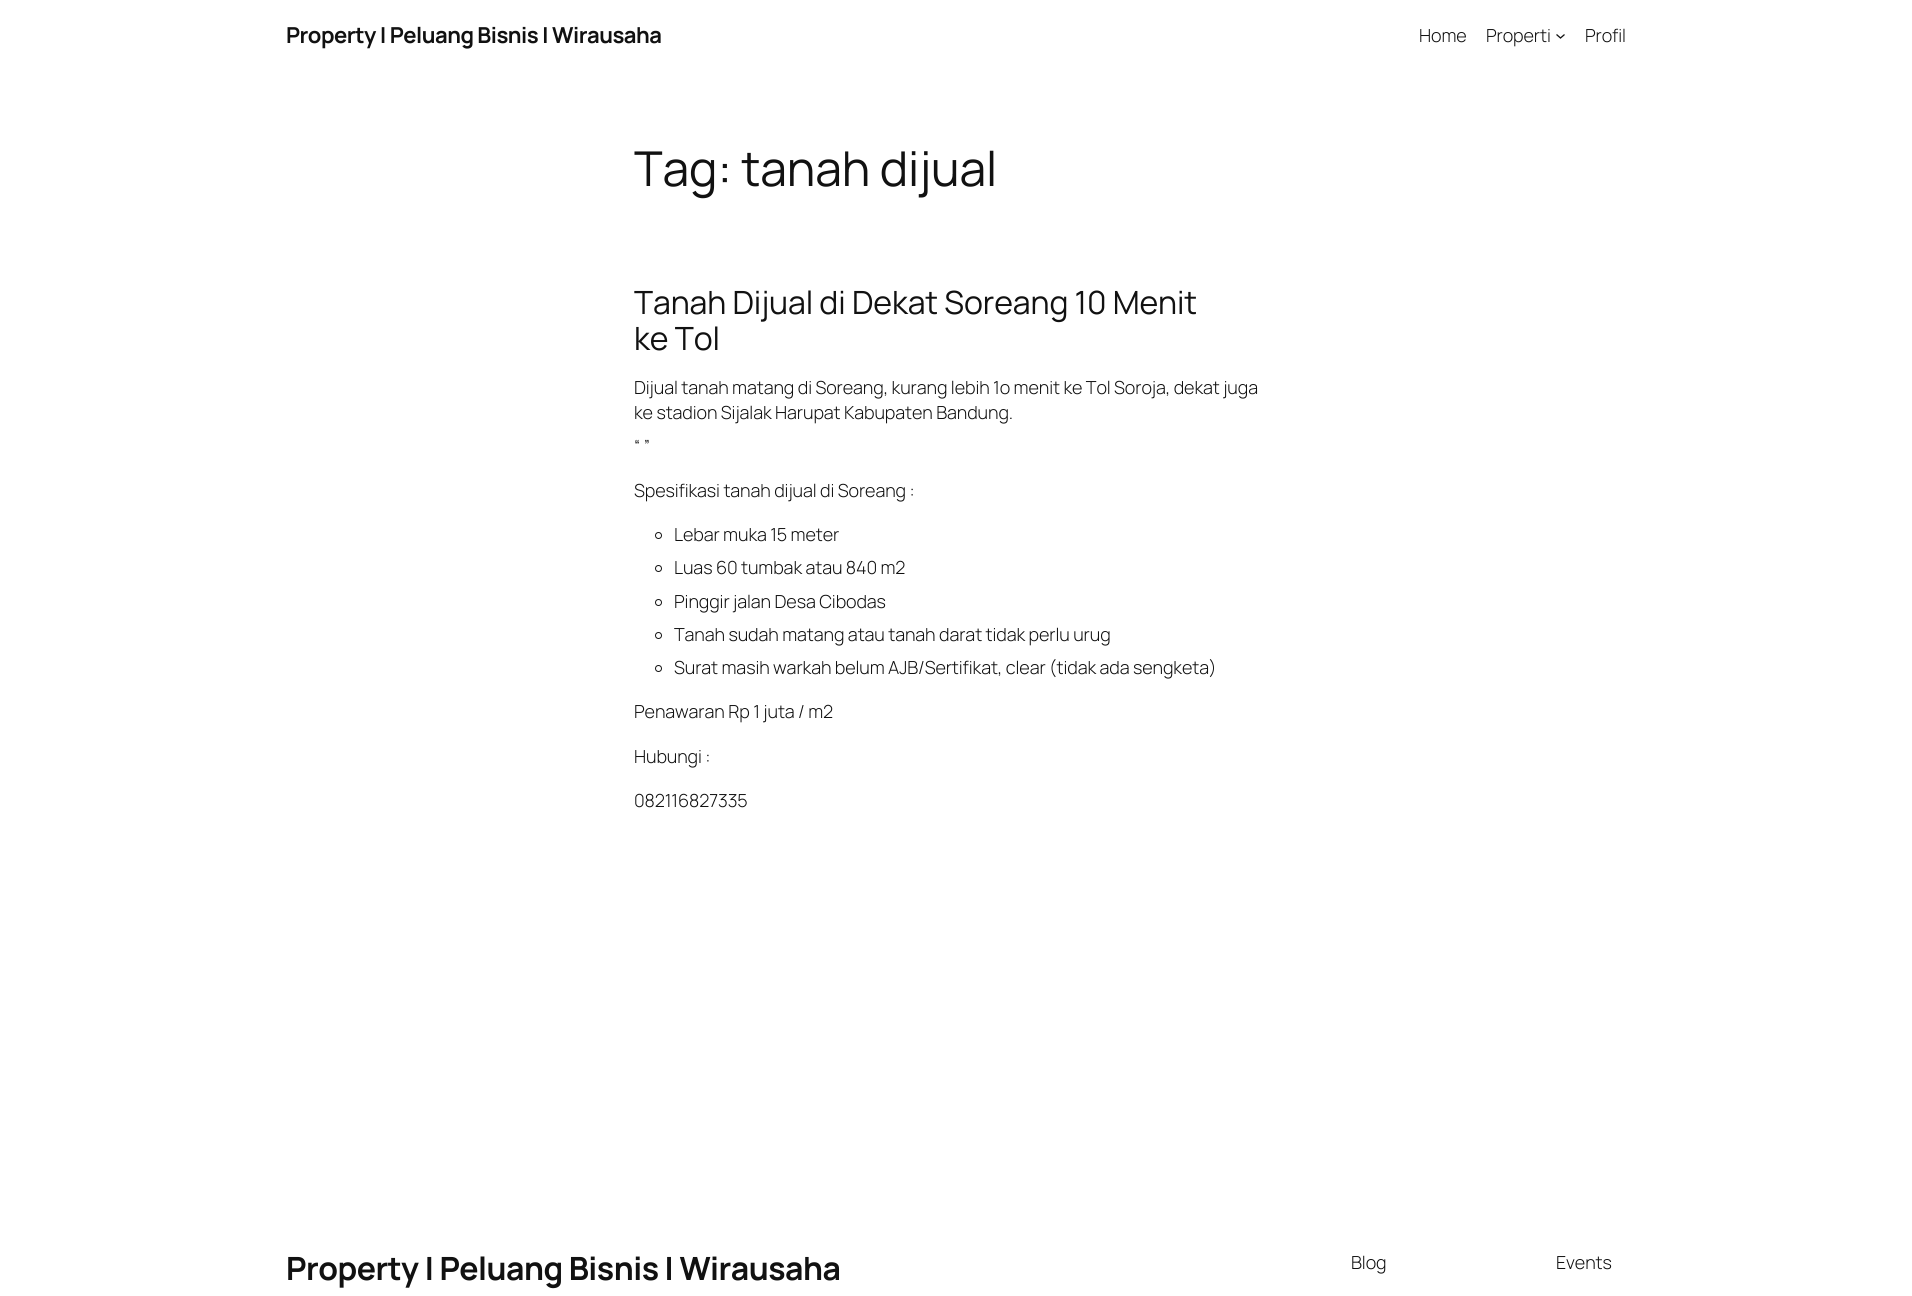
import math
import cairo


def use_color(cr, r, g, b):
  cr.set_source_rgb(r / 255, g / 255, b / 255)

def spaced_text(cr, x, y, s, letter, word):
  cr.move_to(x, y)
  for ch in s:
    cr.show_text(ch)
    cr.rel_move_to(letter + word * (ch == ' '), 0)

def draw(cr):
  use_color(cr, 255, 255, 255)
  cr.paint()
  cr.new_path()
  cr.move_to(1556.5, 34.5)
  cr.line_to(1560.5, 38)
  cr.line_to(1564.5, 34.5)
  use_color(cr, 17, 17, 17)
  cr.set_line_width(1.3)
  cr.stroke()
  cr.arc(658.5, 535.5, 3, 0, 2 * math.pi)
  cr.set_line_width(1)
  cr.stroke()
  cr.arc(658.5, 568.5, 3, 0, 2 * math.pi)
  cr.stroke()
  cr.arc(658.5, 602.5, 3, 0, 2 * math.pi)
  cr.stroke()
  cr.arc(658.5, 635.5, 3, 0, 2 * math.pi)
  cr.stroke()
  cr.arc(658.5, 668.5, 3, 0, 2 * math.pi)
  cr.stroke()
  cr.select_font_face("Manrope", cairo.FONT_SLANT_NORMAL, cairo.FONT_WEIGHT_BOLD)
  cr.set_font_size(22)
  spaced_text(cr, 286, 43, "Property | Peluang Bisnis | Wirausaha", -0.5, 0)
  cr.select_font_face("Manrope Light")
  cr.set_font_size(18)
  spaced_text(cr, 1419, 42, "Home", -0.1, 0)
  spaced_text(cr, 1486, 42, "Properti", -0.1, 0)
  spaced_text(cr, 1585, 42, "Profil", -0.1, 0)
  cr.select_font_face("Manrope")
  cr.set_font_size(48)
  spaced_text(cr, 634, 186, "Tag: tanah dijual", -0.1, 0)
  cr.set_font_size(32)
  spaced_text(cr, 634, 314, "Tanah Dijual di Dekat Soreang 10 Menit", -0.1, 0)
  spaced_text(cr, 634, 350, "ke Tol", -0.1, 0)
  cr.select_font_face("Manrope Light")
  cr.set_font_size(18)
  spaced_text(cr, 634, 394, "Dijual tanah matang di Soreang, kurang lebih 1o menit ke Tol Soroja, dekat juga", -0.1, 0)
  spaced_text(cr, 634, 419, "ke stadion Sijalak Harupat Kabupaten Bandung.", -0.1, 0)
  spaced_text(cr, 634, 453, "“ ”", -0.1, 0)
  spaced_text(cr, 634, 497, "Spesifikasi tanah dijual di Soreang :", -0.1, 0)
  spaced_text(cr, 674, 541, "Lebar muka 15 meter", -0.1, 0)
  spaced_text(cr, 674, 574, "Luas 60 tumbak atau 840 m2", -0.1, 0)
  spaced_text(cr, 674, 608, "Pinggir jalan Desa Cibodas", -0.1, 0)
  spaced_text(cr, 674, 641, "Tanah sudah matang atau tanah darat tidak perlu urug", -0.1, 0)
  spaced_text(cr, 674, 674, "Surat masih warkah belum AJB/Sertifikat, clear (tidak ada sengketa)", -0.1, 0)
  spaced_text(cr, 634, 718, "Penawaran Rp 1 juta / m2", -0.1, 0)
  spaced_text(cr, 634, 763, "Hubungi :", -0.1, 0)
  spaced_text(cr, 634, 807, "082116827335", -0.1, 0)
  cr.select_font_face("Manrope", cairo.FONT_SLANT_NORMAL, cairo.FONT_WEIGHT_BOLD)
  cr.set_font_size(32)
  spaced_text(cr, 286, 1280, "Property | Peluang Bisnis | Wirausaha", -0.5, 0)
  cr.select_font_face("Manrope Light")
  cr.set_font_size(18)
  spaced_text(cr, 1351, 1269, "Blog", -0.1, 0)
  spaced_text(cr, 1556, 1269, "Events", -0.1, 0)


surface = cairo.ImageSurface(cairo.FORMAT_RGB24, 1912, 1296)
cr = cairo.Context(surface)
options = cairo.FontOptions()
options.set_hint_metrics(cairo.HINT_METRICS_OFF)
options.set_hint_style(cairo.HINT_STYLE_NONE)
cr.set_font_options(options)
cr.set_miter_limit(4)
draw(cr)
surface.write_to_png("out.png")
